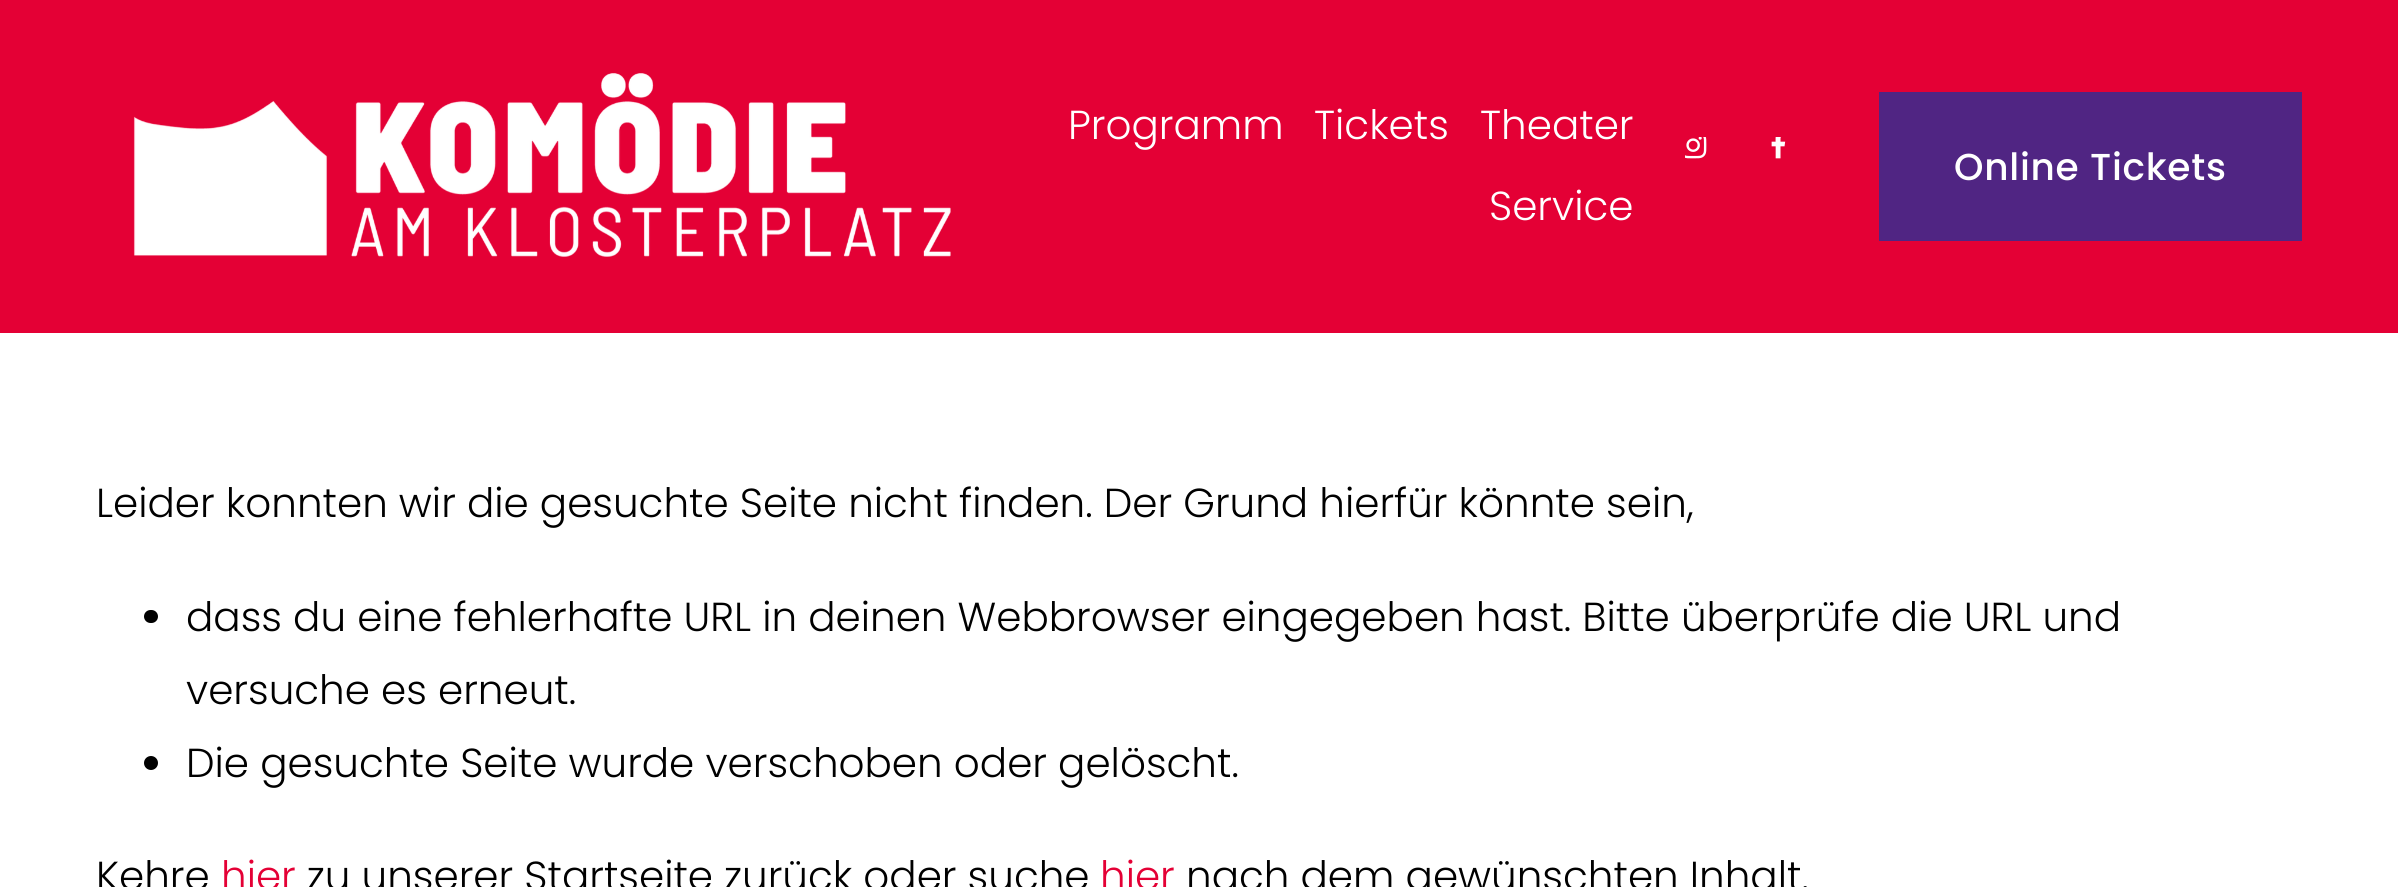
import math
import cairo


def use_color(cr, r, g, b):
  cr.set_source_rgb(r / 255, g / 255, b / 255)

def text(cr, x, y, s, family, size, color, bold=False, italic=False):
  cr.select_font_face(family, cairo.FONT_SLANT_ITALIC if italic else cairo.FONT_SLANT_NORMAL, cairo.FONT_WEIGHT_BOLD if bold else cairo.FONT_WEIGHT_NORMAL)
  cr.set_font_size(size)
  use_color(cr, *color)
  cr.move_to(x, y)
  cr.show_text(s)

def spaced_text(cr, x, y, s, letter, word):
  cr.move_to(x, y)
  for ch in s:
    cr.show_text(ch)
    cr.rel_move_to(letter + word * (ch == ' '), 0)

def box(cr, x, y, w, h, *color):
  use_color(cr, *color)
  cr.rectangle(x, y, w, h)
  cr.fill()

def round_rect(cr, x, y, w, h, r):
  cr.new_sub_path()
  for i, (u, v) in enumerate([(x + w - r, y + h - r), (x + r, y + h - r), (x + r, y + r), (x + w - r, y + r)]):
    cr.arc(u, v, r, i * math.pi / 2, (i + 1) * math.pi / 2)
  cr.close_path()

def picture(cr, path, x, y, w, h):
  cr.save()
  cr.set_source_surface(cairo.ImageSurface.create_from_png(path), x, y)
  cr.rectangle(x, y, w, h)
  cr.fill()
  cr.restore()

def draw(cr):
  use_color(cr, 255, 255, 255)
  cr.paint()
  box(cr, 0, 0, 2398, 333, 228, 0, 53)
  picture(cr, "img_01.png", 133, 73, 818, 184)
  picture(cr, "img_02.png", 1685, 137, 22, 22)
  picture(cr, "img_03.png", 1771, 137, 15, 22)
  box(cr, 1879, 92, 423, 149, 80, 37, 131)
  use_color(cr, 0, 0, 0)
  round_rect(cr, 144, 610, 14, 13, 6.5)
  cr.fill()
  cr.arc(151, 763, 7, 0, 2 * math.pi)
  cr.fill()
  text(cr, 1068, 139, "Programm", "Poppins Light", 40.5, (255, 255, 255))
  text(cr, 1314, 139, "Tickets", "Poppins Light", 40.5, (255, 255, 255))
  text(cr, 1480, 139, "Theater", "Poppins Light", 40.5, (255, 255, 255))
  text(cr, 1489, 220, "Service", "Poppins Light", 40.5, (255, 255, 255))
  cr.select_font_face("Poppins Medium")
  cr.set_font_size(37.5)
  spaced_text(cr, 1954, 180, "Online Tickets", 0.75, 0)
  text(cr, 96, 517, "Leider konnten wir die gesuchte Seite nicht finden. Der Grund hierfür könnte sein,", "Poppins Light", 40.5, (0, 0, 0))
  text(cr, 186, 631, "dass du eine fehlerhafte URL in deinen Webbrowser eingegeben hast. Bitte überprüfe die URL und", "Poppins Light", 40.5, (0, 0, 0))
  text(cr, 186, 704, "versuche es erneut.", "Poppins Light", 40.5, (0, 0, 0))
  text(cr, 186, 777, "Die gesuchte Seite wurde verschoben oder gelöscht.", "Poppins Light", 40.5, (0, 0, 0))
  text(cr, 96, 890, "Kehre", "Poppins Light", 40.5, (0, 0, 0))
  text(cr, 221, 890, "hier", "Poppins Light", 40.5, (228, 0, 53))
  text(cr, 307, 890, "zu unserer Startseite zurück oder suche", "Poppins Light", 40.5, (0, 0, 0))
  text(cr, 1100, 890, "hier", "Poppins Light", 40.5, (228, 0, 53))
  text(cr, 1186, 890, "nach dem gewünschten Inhalt.", "Poppins Light", 40.5, (0, 0, 0))


surface = cairo.ImageSurface(cairo.FORMAT_RGB24, 2398, 887)
cr = cairo.Context(surface)
options = cairo.FontOptions()
options.set_hint_metrics(cairo.HINT_METRICS_OFF)
options.set_hint_style(cairo.HINT_STYLE_NONE)
cr.set_font_options(options)
cr.set_miter_limit(4)
draw(cr)
surface.write_to_png("out.png")
